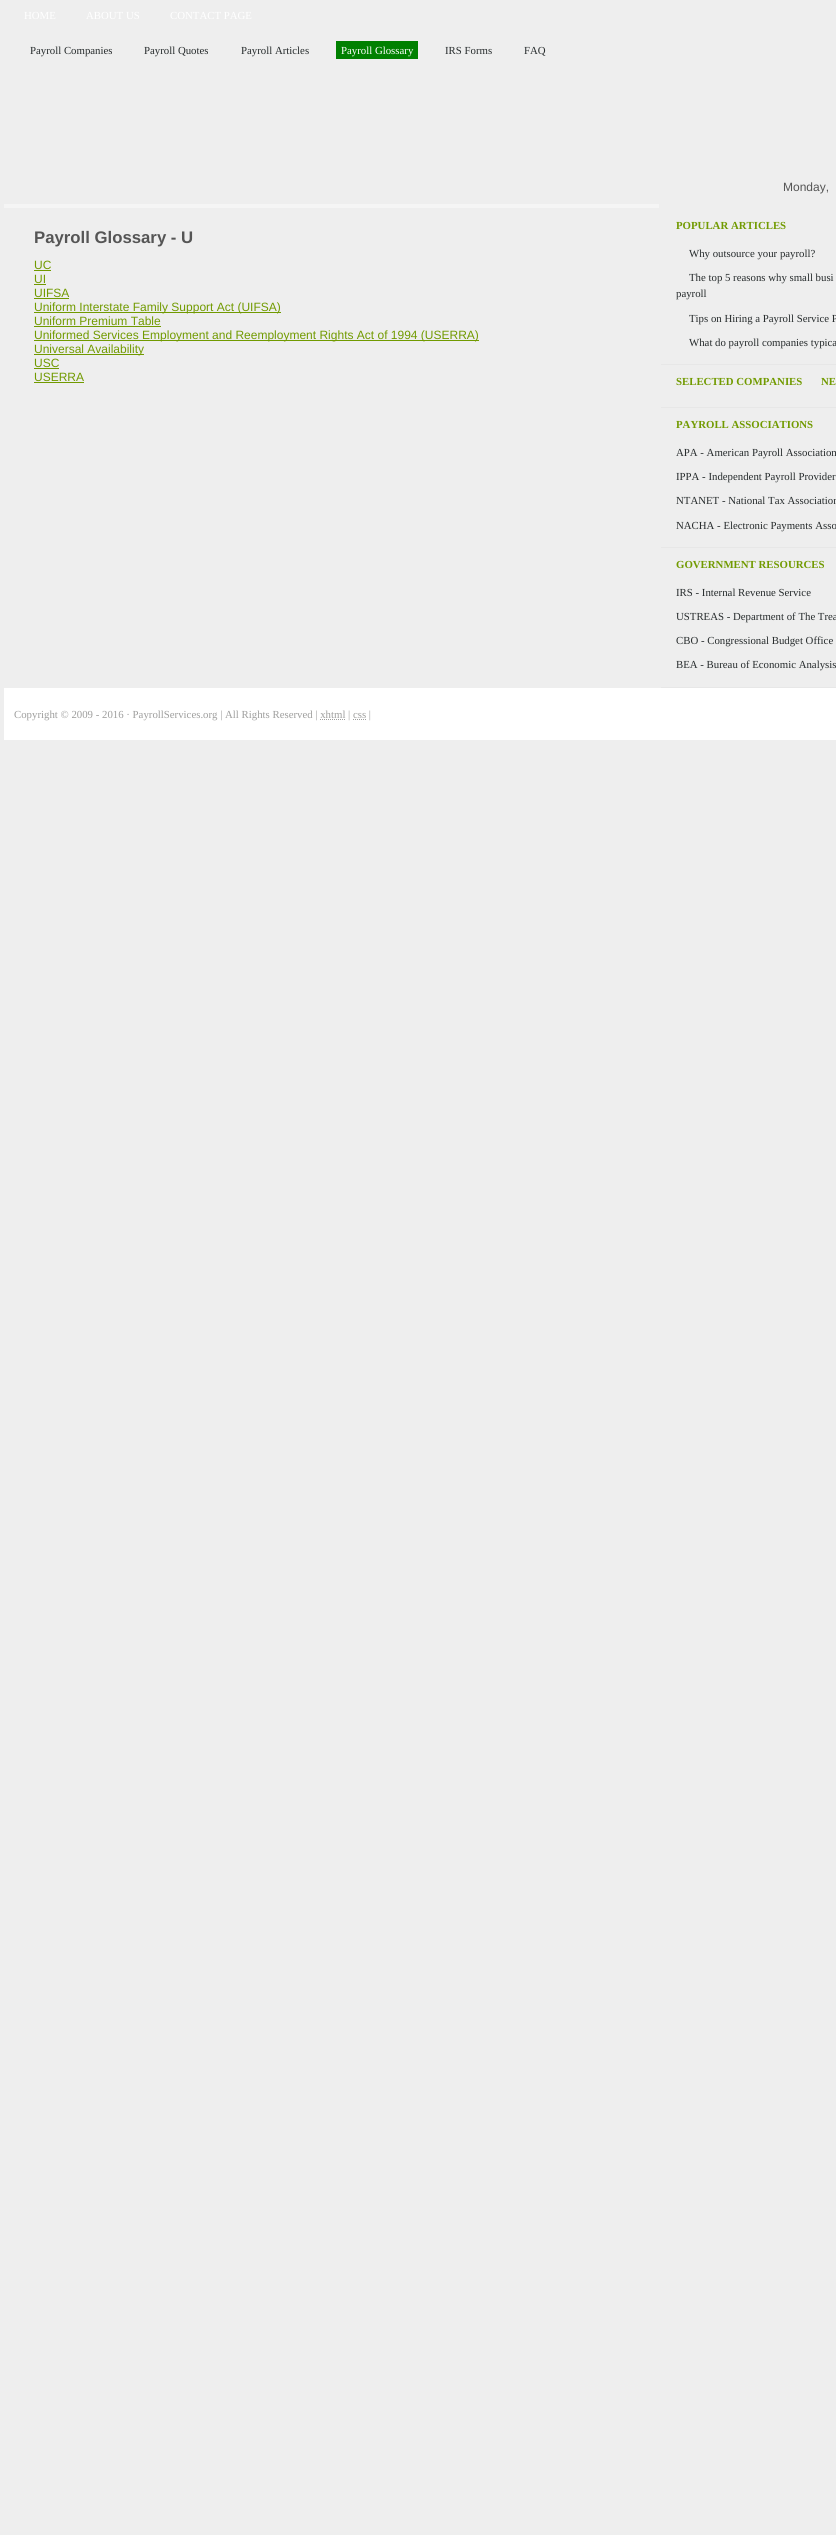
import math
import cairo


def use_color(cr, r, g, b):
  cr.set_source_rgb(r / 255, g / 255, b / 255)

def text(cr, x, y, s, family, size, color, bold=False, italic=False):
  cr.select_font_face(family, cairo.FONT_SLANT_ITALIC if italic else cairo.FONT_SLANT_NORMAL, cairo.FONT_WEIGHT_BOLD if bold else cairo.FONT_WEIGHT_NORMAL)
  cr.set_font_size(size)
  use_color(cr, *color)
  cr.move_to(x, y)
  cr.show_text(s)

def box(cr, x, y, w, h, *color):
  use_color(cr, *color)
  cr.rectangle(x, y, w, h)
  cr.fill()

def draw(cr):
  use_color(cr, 238, 238, 238)
  cr.paint()
  box(cr, 336, 41, 82, 18, 0, 128, 0)
  box(cr, 4, 204, 655, 4, 245, 245, 245)
  box(cr, 34, 270, 17, 1, 113, 154, 0)
  box(cr, 34, 284, 12, 1, 113, 154, 0)
  box(cr, 34, 298, 35, 1, 113, 154, 0)
  box(cr, 34, 312, 247, 1, 113, 154, 0)
  box(cr, 34, 326, 127, 1, 113, 154, 0)
  box(cr, 34, 340, 445, 1, 113, 154, 0)
  box(cr, 34, 354, 110, 1, 113, 154, 0)
  box(cr, 34, 368, 25, 1, 113, 154, 0)
  box(cr, 34, 382, 50, 1, 113, 154, 0)
  box(cr, 661, 364, 175, 1, 231, 231, 231)
  box(cr, 661, 407, 175, 1, 231, 231, 231)
  box(cr, 661, 547, 175, 1, 231, 231, 231)
  box(cr, 661, 687, 175, 1, 231, 231, 231)
  box(cr, 4, 688, 832, 52, 255, 255, 255)
  cr.new_path()
  cr.move_to(320, 719.5)
  cr.line_to(345.5, 719.5)
  cr.move_to(353, 719.5)
  cr.line_to(366, 719.5)
  use_color(cr, 158, 158, 157)
  cr.set_line_width(1)
  cr.set_dash([1, 1])
  cr.stroke()
  text(cr, 24, 19, "HOME", "Liberation Serif", 10.8, (255, 255, 255))
  text(cr, 86, 19, "ABOUT US", "Liberation Serif", 10.8, (255, 255, 255))
  text(cr, 170, 19, "CONTACT PAGE", "Liberation Serif", 10.8, (255, 255, 255))
  text(cr, 30, 54, "Payroll Companies", "Liberation Serif", 10.8, (38, 43, 44))
  text(cr, 144, 54, "Payroll Quotes", "Liberation Serif", 10.8, (38, 43, 44))
  text(cr, 241, 54, "Payroll Articles", "Liberation Serif", 10.8, (38, 43, 44))
  text(cr, 341, 54, "Payroll Glossary", "Liberation Serif", 10.8, (255, 255, 255))
  text(cr, 445, 54, "IRS Forms", "Liberation Serif", 10.8, (38, 43, 44))
  text(cr, 524, 54, "FAQ", "Liberation Serif", 10.8, (38, 43, 44))
  text(cr, 783, 191, "Monday,", "Liberation Sans", 12, (85, 85, 85))
  text(cr, 34, 243, "Payroll Glossary - U", "Liberation Sans", 16.75, (85, 85, 85), bold=True)
  text(cr, 34, 269, "UC", "Liberation Sans", 12, (113, 154, 0))
  text(cr, 34, 283, "UI", "Liberation Sans", 12, (113, 154, 0))
  text(cr, 34, 297, "UIFSA", "Liberation Sans", 12, (113, 154, 0))
  text(cr, 34, 311, "Uniform Interstate Family Support Act (UIFSA)", "Liberation Sans", 12, (113, 154, 0))
  text(cr, 34, 325, "Uniform Premium Table", "Liberation Sans", 12, (113, 154, 0))
  text(cr, 34, 339, "Uniformed Services Employment and Reemployment Rights Act of 1994 (USERRA)", "Liberation Sans", 12, (113, 154, 0))
  text(cr, 34, 353, "Universal Availability", "Liberation Sans", 12, (113, 154, 0))
  text(cr, 34, 367, "USC", "Liberation Sans", 12, (113, 154, 0))
  text(cr, 34, 381, "USERRA", "Liberation Sans", 12, (113, 154, 0))
  text(cr, 676, 229, "POPULAR ARTICLES", "Liberation Serif", 10.8, (113, 154, 0), bold=True)
  text(cr, 689, 257, "Why outsource your payroll?", "Liberation Serif", 10.8, (38, 43, 44))
  text(cr, 689, 281, "The top 5 reasons why small busi", "Liberation Serif", 10.8, (38, 43, 44))
  text(cr, 676, 297, "payroll", "Liberation Serif", 10.8, (38, 43, 44))
  text(cr, 689, 322, "Tips on Hiring a Payroll Service P", "Liberation Serif", 10.8, (38, 43, 44))
  text(cr, 689, 346, "What do payroll companies typica", "Liberation Serif", 10.8, (38, 43, 44))
  text(cr, 676, 385, "SELECTED COMPANIES", "Liberation Serif", 10.8, (113, 154, 0), bold=True)
  text(cr, 821, 385, "NE", "Liberation Serif", 10.8, (113, 154, 0), bold=True)
  text(cr, 676, 428, "PAYROLL ASSOCIATIONS", "Liberation Serif", 10.8, (113, 154, 0), bold=True)
  text(cr, 676, 456, "APA - American Payroll Association", "Liberation Serif", 10.8, (38, 43, 44))
  text(cr, 676, 480, "IPPA - Independent Payroll Provider", "Liberation Serif", 10.8, (38, 43, 44))
  text(cr, 676, 504, "NTANET - National Tax Association", "Liberation Serif", 10.8, (38, 43, 44))
  text(cr, 676, 529, "NACHA - Electronic Payments Asso", "Liberation Serif", 10.8, (38, 43, 44))
  text(cr, 676, 568, "GOVERNMENT RESOURCES", "Liberation Serif", 10.8, (113, 154, 0), bold=True)
  text(cr, 676, 596, "IRS - Internal Revenue Service", "Liberation Serif", 10.8, (38, 43, 44))
  text(cr, 676, 620, "USTREAS - Department of The Trea", "Liberation Serif", 10.8, (38, 43, 44))
  text(cr, 676, 644, "CBO - Congressional Budget Office", "Liberation Serif", 10.8, (38, 43, 44))
  text(cr, 676, 668, "BEA - Bureau of Economic Analysis", "Liberation Serif", 10.8, (38, 43, 44))
  text(cr, 14, 718, "Copyright © 2009 - 2016 · PayrollServices.org | All Rights Reserved | xhtml | css |", "Liberation Serif", 10.8, (158, 158, 157))


surface = cairo.ImageSurface(cairo.FORMAT_RGB24, 836, 2535)
cr = cairo.Context(surface)
options = cairo.FontOptions()
options.set_hint_metrics(cairo.HINT_METRICS_OFF)
options.set_hint_style(cairo.HINT_STYLE_NONE)
cr.set_font_options(options)
cr.set_miter_limit(4)
draw(cr)
surface.write_to_png("out.png")
